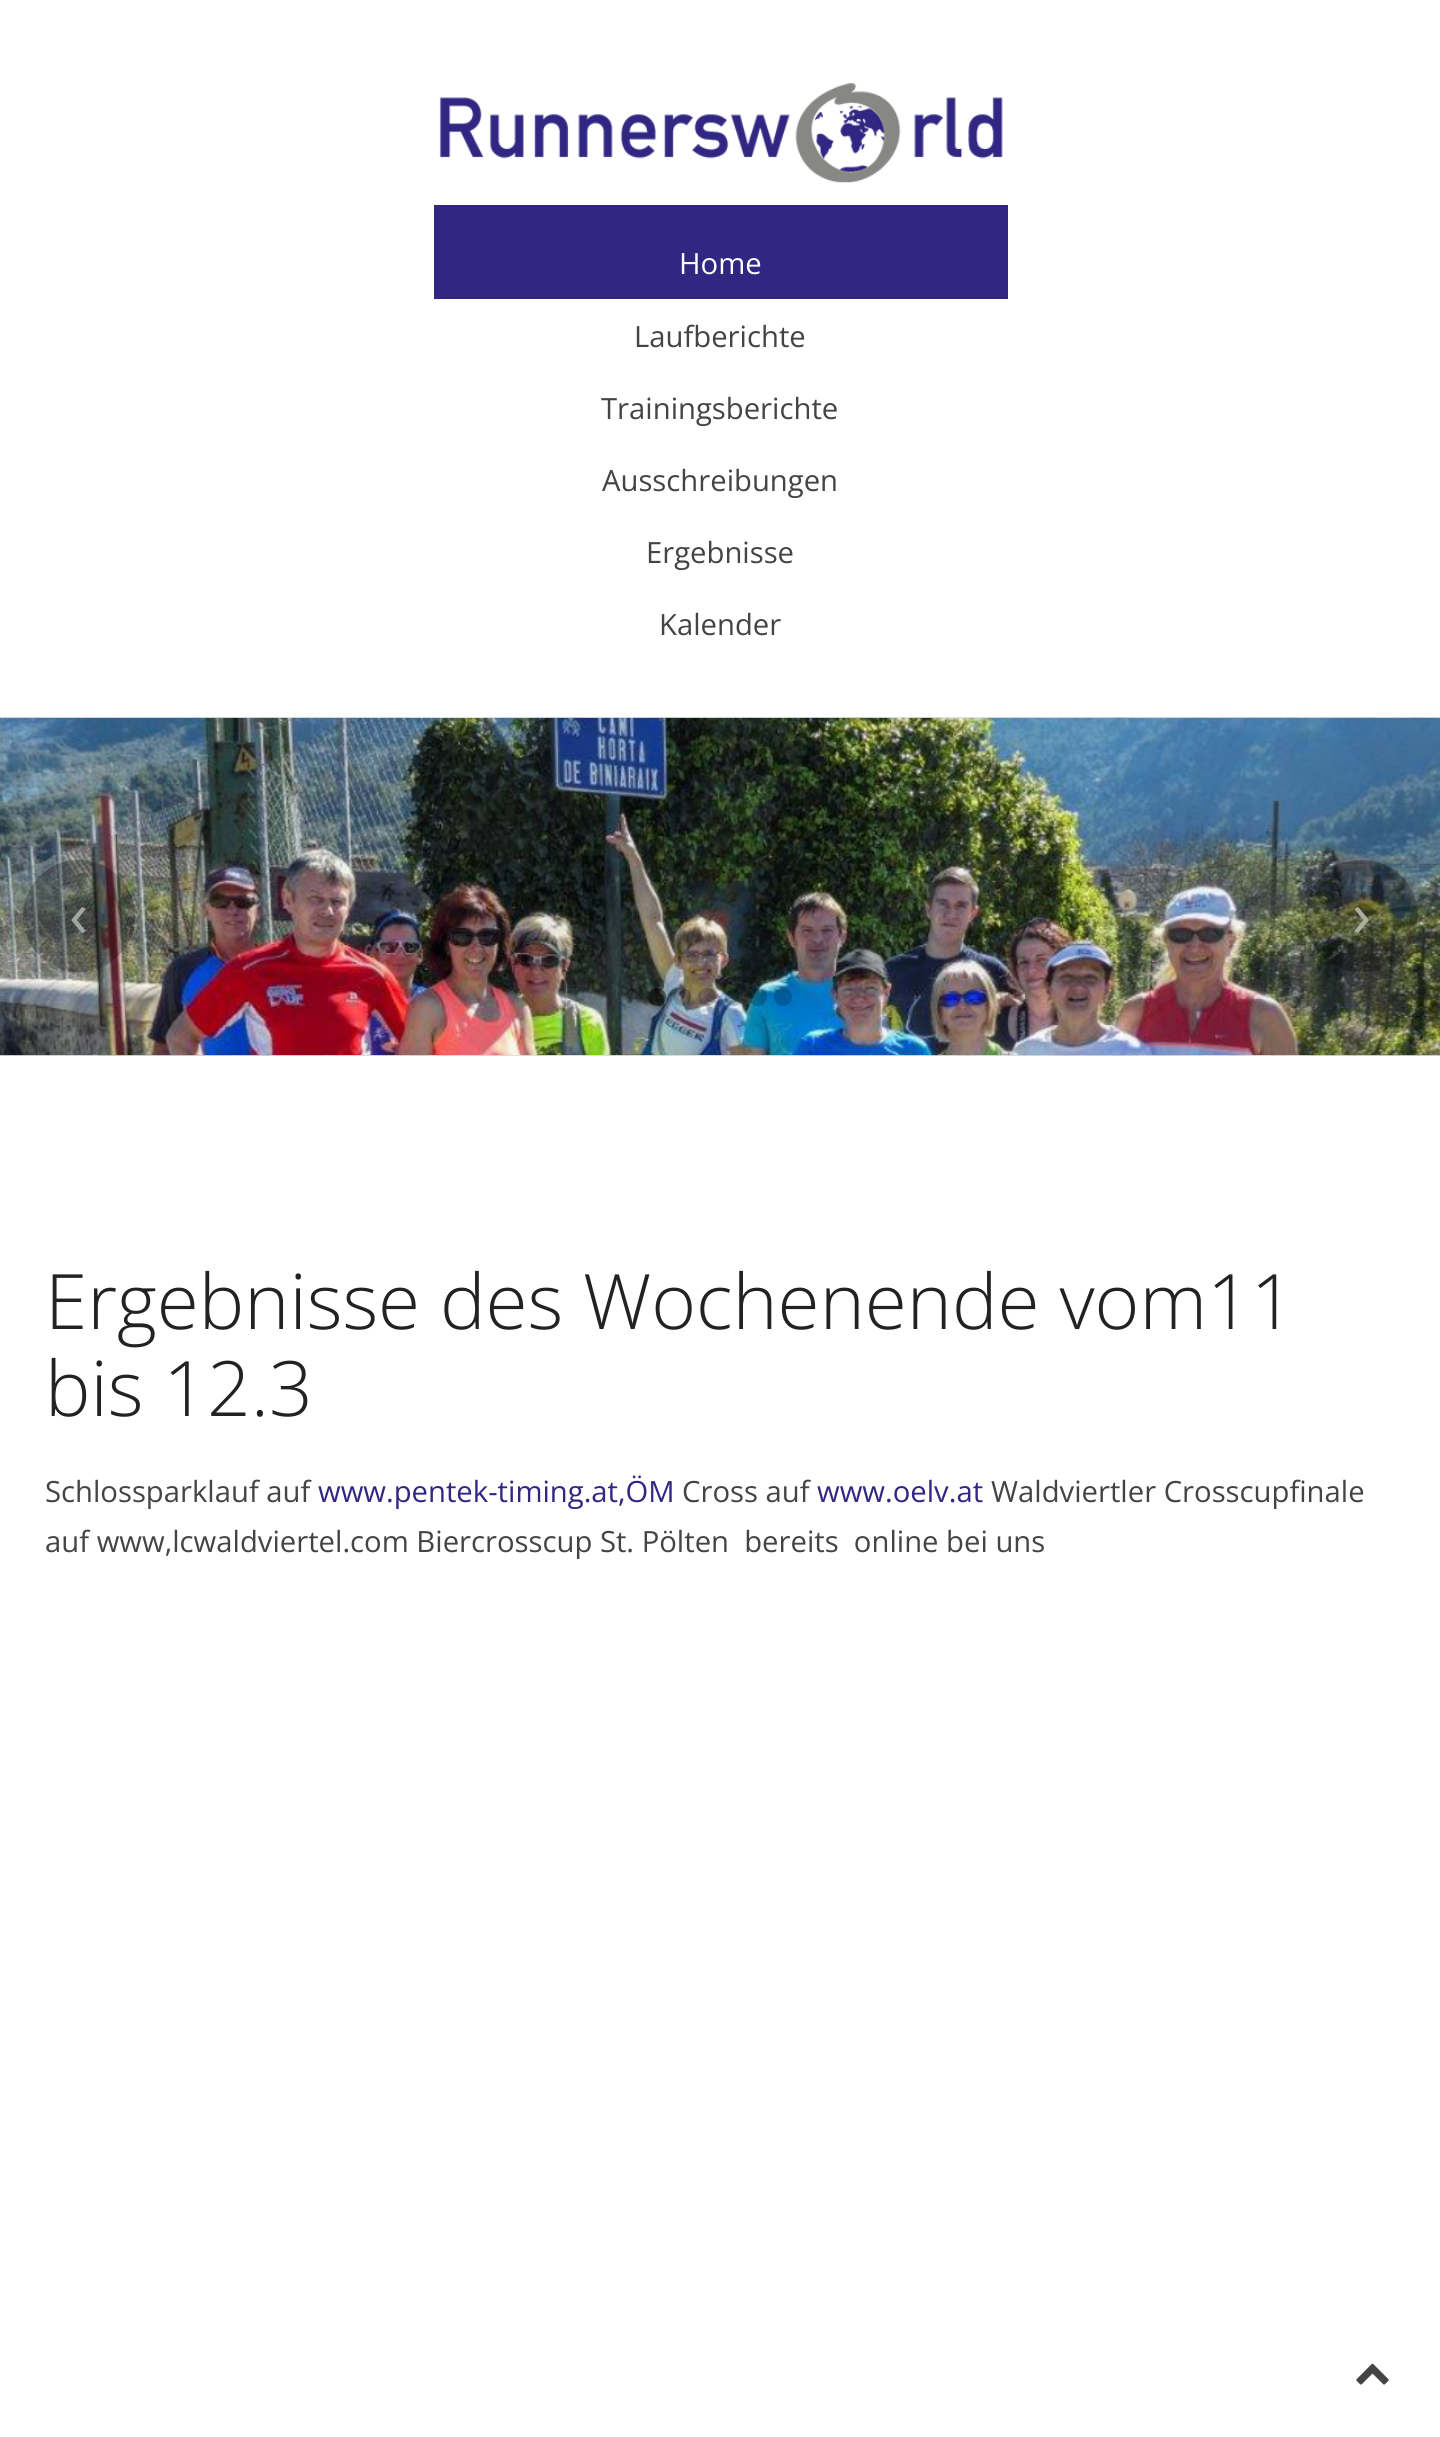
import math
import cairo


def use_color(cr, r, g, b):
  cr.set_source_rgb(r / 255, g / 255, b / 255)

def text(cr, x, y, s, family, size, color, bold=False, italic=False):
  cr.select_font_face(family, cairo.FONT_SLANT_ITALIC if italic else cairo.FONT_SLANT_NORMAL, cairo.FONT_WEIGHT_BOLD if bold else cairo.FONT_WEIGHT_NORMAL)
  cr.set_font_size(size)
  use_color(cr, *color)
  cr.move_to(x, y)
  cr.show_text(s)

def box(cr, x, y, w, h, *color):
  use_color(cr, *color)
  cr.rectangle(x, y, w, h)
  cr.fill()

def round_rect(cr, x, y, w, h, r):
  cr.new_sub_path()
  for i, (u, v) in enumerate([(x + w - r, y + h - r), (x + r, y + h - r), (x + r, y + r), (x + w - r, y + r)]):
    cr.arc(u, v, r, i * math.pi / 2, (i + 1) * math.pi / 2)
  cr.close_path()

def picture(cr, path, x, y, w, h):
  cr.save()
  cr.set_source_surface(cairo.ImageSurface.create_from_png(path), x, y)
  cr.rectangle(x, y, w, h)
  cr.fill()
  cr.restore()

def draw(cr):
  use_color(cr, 255, 255, 255)
  cr.paint()
  picture(cr, "img_01.png", 439, 83, 564, 100)
  box(cr, 434, 205, 574, 94, 49, 39, 131)
  picture(cr, "img_02.png", 0, 717, 1440, 339)
  picture(cr, "img_03.png", 0, 717, 1440, 339)
  picture(cr, "img_04.png", 0, 717, 1440, 339)
  picture(cr, "img_05.png", 0, 717, 1440, 339)
  picture(cr, "img_06.png", 0, 717, 1440, 339)
  picture(cr, "img_07.png", 0, 717, 1440, 339)
  cr.set_source_rgba(0, 0, 0, 0.25)
  cr.arc(79, 916, 56, 0, 2 * math.pi)
  cr.fill()
  round_rect(cr, 1305, 860, 113, 112, 56)
  cr.fill()
  cr.set_source_rgba(0, 0, 0, 0.5)
  cr.arc(657, 997, 9, 0, 2 * math.pi)
  cr.fill()
  cr.set_source_rgba(0, 0, 0, 0.2)
  cr.arc(682, 997, 9, 0, 2 * math.pi)
  cr.fill()
  cr.arc(707, 997, 9, 0, 2 * math.pi)
  cr.fill()
  cr.arc(734, 997, 9, 0, 2 * math.pi)
  cr.fill()
  cr.arc(758, 997, 9, 0, 2 * math.pi)
  cr.fill()
  cr.arc(783, 997, 9, 0, 2 * math.pi)
  cr.fill()
  picture(cr, "img_08.png", 1356, 2363, 33, 22)
  text(cr, 679, 274, "Home", "Open Sans", 29.25, (255, 255, 255))
  text(cr, 634, 347, "Laufberichte", "Open Sans", 29.25, (68, 68, 68))
  text(cr, 601, 419, "Trainingsberichte", "Open Sans", 29.25, (68, 68, 68))
  text(cr, 602, 491, "Ausschreibungen", "Open Sans", 29.25, (68, 68, 68))
  text(cr, 646, 563, "Ergebnisse", "Open Sans", 29.25, (68, 68, 68))
  text(cr, 659, 635, "Kalender", "Open Sans", 29.25, (68, 68, 68))
  text(cr, 69, 937, "‹", "Open Sans", 64, (164, 166, 163))
  text(cr, 1352, 937, "›", "Open Sans", 64, (172, 174, 158))
  text(cr, 45, 1329, "Ergebnisse des Wochenende vom11", "Open Sans Light", 76.5, (34, 34, 34))
  text(cr, 45, 1416, "bis 12.3", "Open Sans Light", 76.5, (34, 34, 34))
  text(cr, 45, 1502, "Schlossparklauf auf", "Open Sans", 29.25, (68, 68, 68))
  text(cr, 318, 1502, "www.pentek-timing.at,ÖM", "Open Sans", 29.25, (49, 39, 131))
  text(cr, 682, 1502, "Cross auf", "Open Sans", 29.25, (68, 68, 68))
  text(cr, 817, 1502, "www.oelv.at", "Open Sans", 29.25, (49, 39, 131))
  text(cr, 991, 1502, "Waldviertler Crosscupfinale", "Open Sans", 29.25, (68, 68, 68))
  text(cr, 45, 1552, "auf www,lcwaldviertel.com Biercrosscup St. Pölten  bereits  online bei uns", "Open Sans", 29.25, (68, 68, 68))


surface = cairo.ImageSurface(cairo.FORMAT_RGB24, 1440, 2437)
cr = cairo.Context(surface)
options = cairo.FontOptions()
options.set_hint_metrics(cairo.HINT_METRICS_OFF)
options.set_hint_style(cairo.HINT_STYLE_NONE)
cr.set_font_options(options)
cr.set_miter_limit(4)
draw(cr)
surface.write_to_png("out.png")
